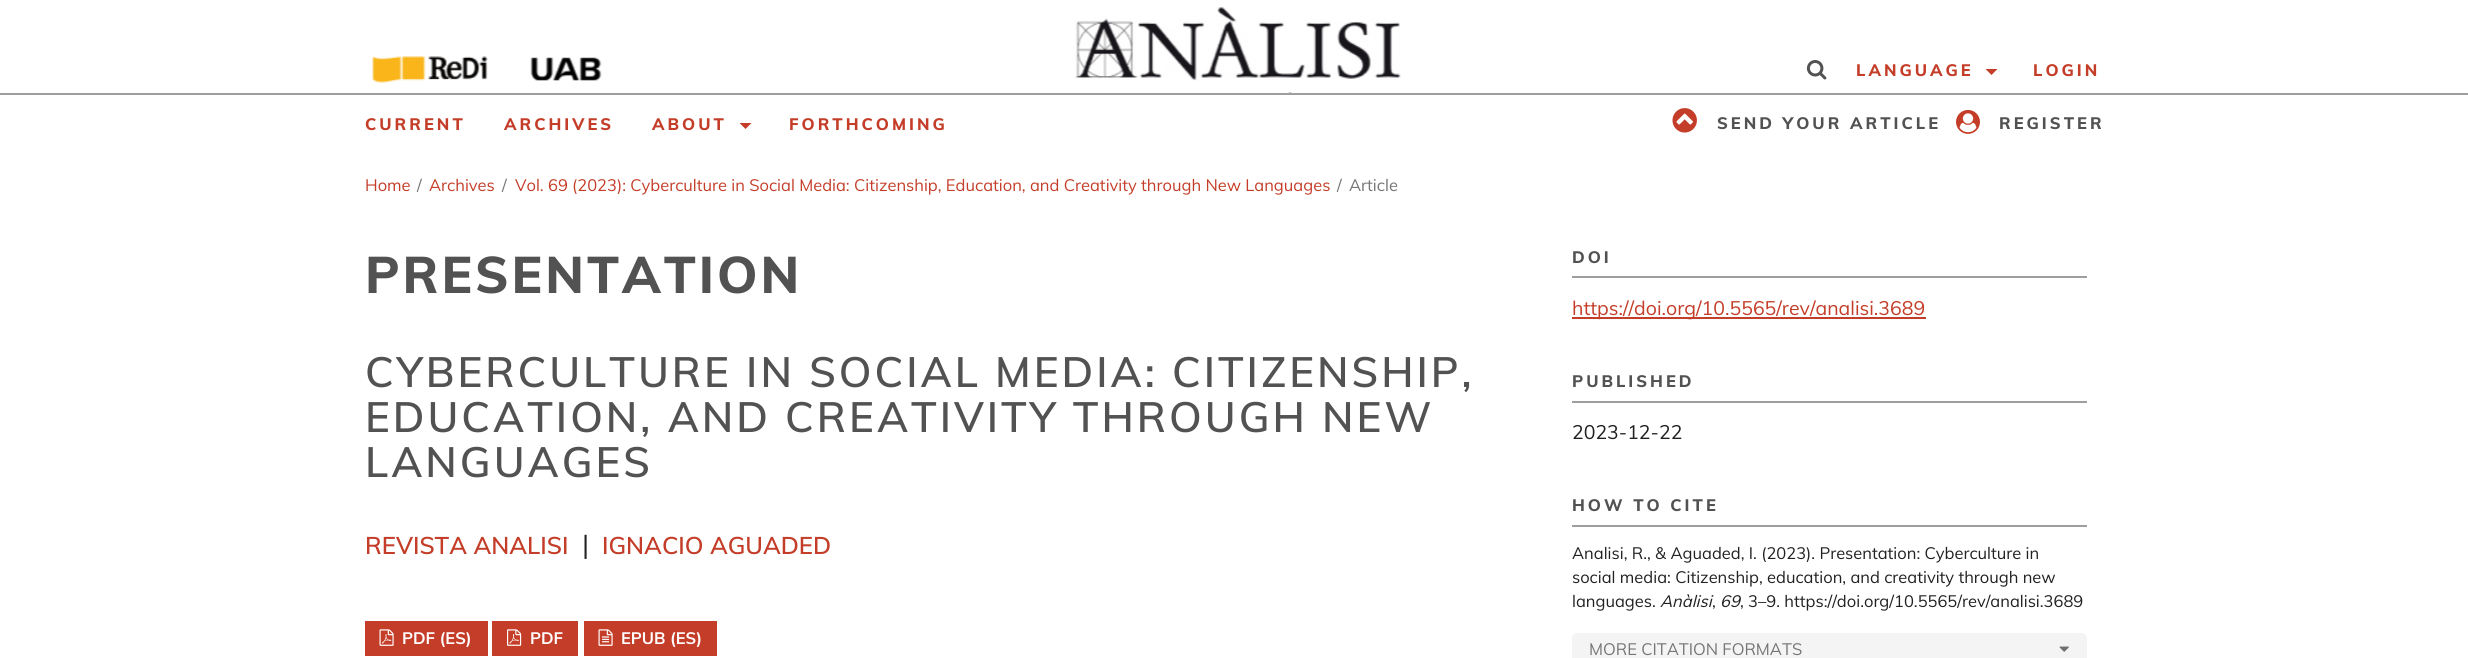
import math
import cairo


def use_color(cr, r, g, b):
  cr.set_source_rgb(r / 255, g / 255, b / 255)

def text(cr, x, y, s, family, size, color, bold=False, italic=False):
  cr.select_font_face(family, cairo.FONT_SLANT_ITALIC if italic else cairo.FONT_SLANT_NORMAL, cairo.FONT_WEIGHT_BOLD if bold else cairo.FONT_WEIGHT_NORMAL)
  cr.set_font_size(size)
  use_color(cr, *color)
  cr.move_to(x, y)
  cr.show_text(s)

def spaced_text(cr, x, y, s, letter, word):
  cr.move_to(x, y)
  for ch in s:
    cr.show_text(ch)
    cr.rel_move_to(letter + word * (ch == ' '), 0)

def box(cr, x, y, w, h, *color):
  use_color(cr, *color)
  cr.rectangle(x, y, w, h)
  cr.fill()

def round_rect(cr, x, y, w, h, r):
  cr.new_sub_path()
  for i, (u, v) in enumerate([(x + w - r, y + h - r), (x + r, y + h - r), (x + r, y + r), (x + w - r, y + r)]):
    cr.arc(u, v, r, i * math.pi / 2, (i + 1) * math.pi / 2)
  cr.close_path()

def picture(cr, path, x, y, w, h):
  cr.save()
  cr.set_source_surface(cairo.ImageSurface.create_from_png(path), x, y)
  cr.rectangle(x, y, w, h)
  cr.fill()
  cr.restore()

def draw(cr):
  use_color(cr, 255, 255, 255)
  cr.paint()
  picture(cr, "img_01.png", 372, 56, 116, 27)
  picture(cr, "img_02.png", 530, 57, 72, 24)
  picture(cr, "img_03.png", 1075, 7, 326, 86)
  picture(cr, "img_04.png", 1806, 60, 21, 20)
  use_color(cr, 196, 61, 40)
  cr.new_path()
  cr.move_to(1985.5, 69)
  cr.line_to(1997.5, 69)
  cr.line_to(1991.5, 75)
  cr.close_path()
  cr.fill()
  box(cr, 0, 93, 2468, 2, 156, 158, 159)
  use_color(cr, 196, 61, 40)
  cr.new_path()
  cr.move_to(739.5, 123)
  cr.line_to(751.5, 123)
  cr.line_to(745.5, 129)
  cr.close_path()
  cr.fill()
  picture(cr, "img_05.png", 1672, 108, 25, 25)
  picture(cr, "img_06.png", 1956, 109, 24, 25)
  box(cr, 365, 621, 123, 35, 196, 61, 40)
  picture(cr, "img_07.png", 379, 629, 15, 17)
  box(cr, 492, 621, 86, 35, 196, 61, 40)
  picture(cr, "img_08.png", 507, 629, 15, 17)
  box(cr, 584, 621, 133, 35, 196, 61, 40)
  picture(cr, "img_09.png", 598, 629, 15, 17)
  box(cr, 1572, 276, 515, 2, 156, 158, 159)
  box(cr, 1572, 317, 354, 2, 196, 61, 40)
  box(cr, 1572, 401, 515, 2, 156, 158, 159)
  box(cr, 1572, 525, 515, 2, 156, 158, 159)
  use_color(cr, 244, 244, 244)
  round_rect(cr, 1572, 633, 515, 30, 5)
  cr.fill()
  picture(cr, "img_10.png", 2059, 646, 10, 6)
  cr.select_font_face("Muli ExtraBold")
  cr.set_font_size(16.5)
  use_color(cr, 196, 61, 40)
  spaced_text(cr, 1856, 76, "LANGUAGE", 3, 0)
  spaced_text(cr, 2033, 76, "LOGIN", 3, 0)
  spaced_text(cr, 365, 130, "CURRENT", 3, 0)
  spaced_text(cr, 504, 130, "ARCHIVES", 3, 0)
  spaced_text(cr, 652, 130, "ABOUT", 3, 0)
  spaced_text(cr, 789, 130, "FORTHCOMING", 3, 0)
  use_color(cr, 82, 82, 82)
  spaced_text(cr, 1717, 129, "SEND YOUR ARTICLE", 3, 0)
  spaced_text(cr, 1999, 129, "REGISTER", 3, 0)
  text(cr, 365, 191, "Home", "Muli", 16.5, (196, 61, 40))
  text(cr, 417, 191, "/", "Muli", 16.5, (117, 117, 117))
  text(cr, 429, 191, "Archives", "Muli", 16.5, (196, 61, 40))
  text(cr, 502, 191, "/", "Muli", 16.5, (117, 117, 117))
  text(cr, 515, 191, "Vol. 69 (2023): Cyberculture in Social Media: Citizenship, Education, and Creativity through New Languages", "Muli", 16.5, (196, 61, 40))
  text(cr, 1337, 191, "/", "Muli", 16.5, (117, 117, 117))
  text(cr, 1349, 191, "Article", "Muli", 16.5, (117, 117, 117))
  cr.select_font_face("Muli ExtraBold")
  cr.set_font_size(51)
  use_color(cr, 82, 82, 82)
  spaced_text(cr, 365, 293, "PRESENTATION", 3, 0)
  cr.select_font_face("Muli SemiBold")
  cr.set_font_size(42)
  spaced_text(cr, 365, 387, "CYBERCULTURE IN SOCIAL MEDIA: CITIZENSHIP,", 3, 0)
  spaced_text(cr, 365, 432, "EDUCATION, AND CREATIVITY THROUGH NEW", 3, 0)
  spaced_text(cr, 365, 477, "LANGUAGES", 3, 0)
  text(cr, 365, 554, "REVISTA ANALISI", "Muli SemiBold", 24, (196, 61, 40))
  text(cr, 582, 554, "|", "Muli", 27, (33, 33, 33))
  text(cr, 602, 554, "IGNACIO AGUADED", "Muli SemiBold", 24, (196, 61, 40))
  text(cr, 402, 644, "PDF (ES)", "Muli", 16.5, (255, 255, 255), bold=True)
  text(cr, 530, 644, "PDF", "Muli", 16.5, (255, 255, 255), bold=True)
  text(cr, 621, 644, "EPUB (ES)", "Muli", 16.5, (255, 255, 255), bold=True)
  cr.select_font_face("Muli ExtraBold")
  use_color(cr, 82, 82, 82)
  spaced_text(cr, 1572, 263, "DOI", 3, 0)
  text(cr, 1572, 315, "https://doi.org/10.5565/rev/analisi.3689", "Muli", 19.5, (196, 61, 40))
  cr.select_font_face("Muli ExtraBold")
  cr.set_font_size(16.5)
  use_color(cr, 82, 82, 82)
  spaced_text(cr, 1572, 387, "PUBLISHED", 3, 0)
  text(cr, 1572, 439, "2023-12-22", "Muli", 19.5, (33, 33, 33))
  cr.select_font_face("Muli ExtraBold")
  cr.set_font_size(16.5)
  use_color(cr, 82, 82, 82)
  spaced_text(cr, 1572, 511, "HOW TO CITE", 3, 0)
  text(cr, 1572, 559, "Analisi, R., & Aguaded, I. (2023). Presentation: Cyberculture in", "Muli", 16.5, (33, 33, 33))
  text(cr, 1572, 583, "social media: Citizenship, education, and creativity through new", "Muli", 16.5, (33, 33, 33))
  text(cr, 1572, 607, "languages.", "Muli", 16.5, (33, 33, 33))
  text(cr, 1660, 607, "Anàlisi", "Muli", 16.5, (33, 33, 33), italic=True)
  text(cr, 1720, 607, "69", "Muli", 16.5, (33, 33, 33), italic=True)
  text(cr, 1740, 607, ", 3–9. https://doi.org/10.5565/rev/analisi.3689", "Muli", 16.5, (33, 33, 33))
  text(cr, 1712, 607, ",", "Muli", 16.5, (33, 33, 33))
  text(cr, 1589, 655, "MORE CITATION FORMATS", "Muli", 16.5, (117, 117, 117))


surface = cairo.ImageSurface(cairo.FORMAT_RGB24, 2468, 658)
cr = cairo.Context(surface)
options = cairo.FontOptions()
options.set_hint_metrics(cairo.HINT_METRICS_OFF)
options.set_hint_style(cairo.HINT_STYLE_NONE)
cr.set_font_options(options)
cr.set_miter_limit(4)
draw(cr)
surface.write_to_png("out.png")
